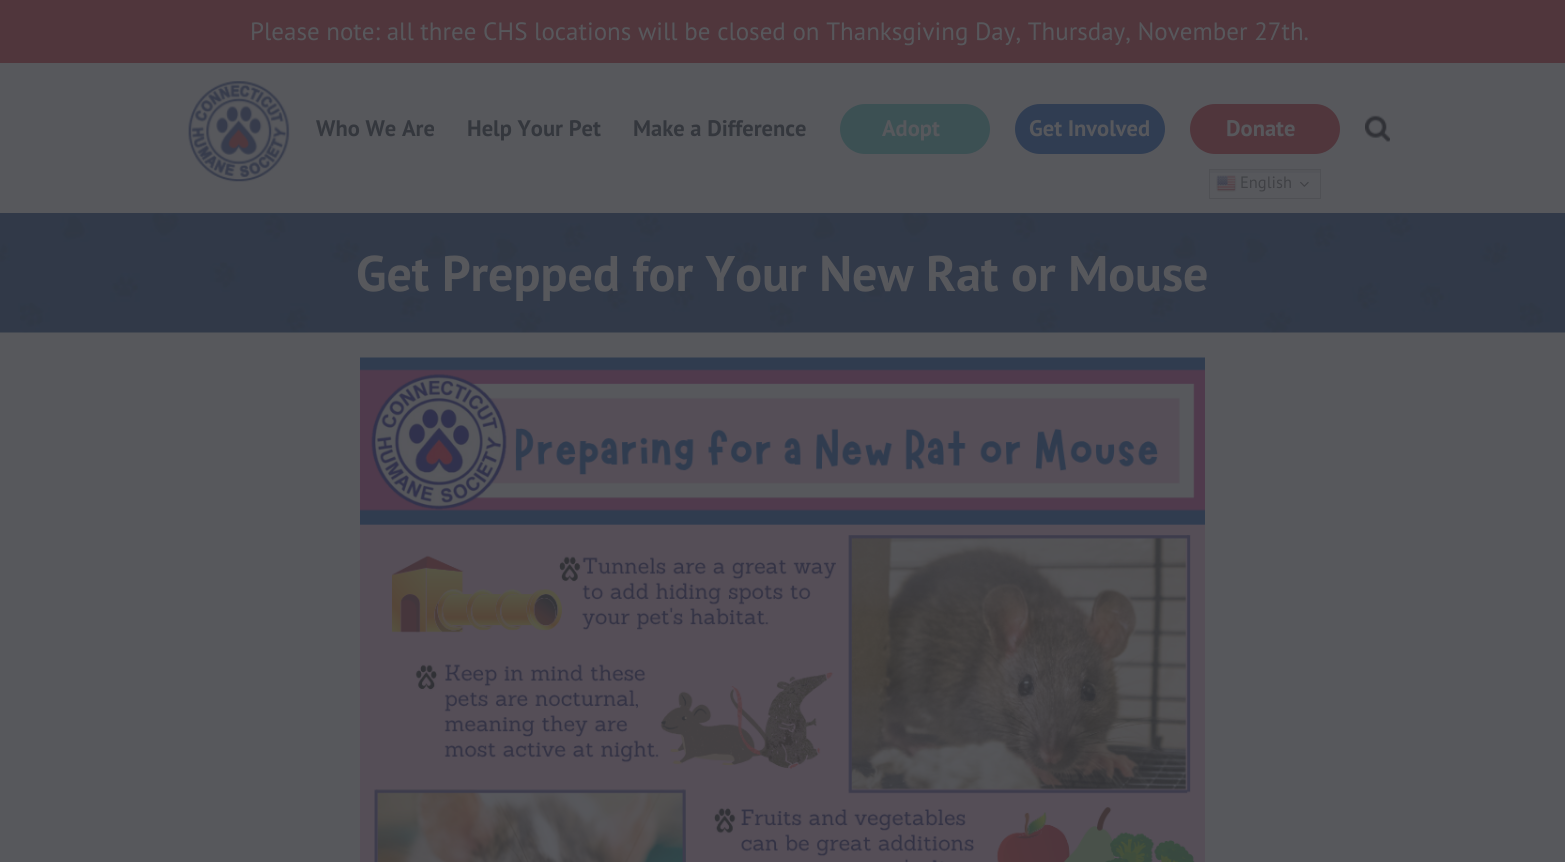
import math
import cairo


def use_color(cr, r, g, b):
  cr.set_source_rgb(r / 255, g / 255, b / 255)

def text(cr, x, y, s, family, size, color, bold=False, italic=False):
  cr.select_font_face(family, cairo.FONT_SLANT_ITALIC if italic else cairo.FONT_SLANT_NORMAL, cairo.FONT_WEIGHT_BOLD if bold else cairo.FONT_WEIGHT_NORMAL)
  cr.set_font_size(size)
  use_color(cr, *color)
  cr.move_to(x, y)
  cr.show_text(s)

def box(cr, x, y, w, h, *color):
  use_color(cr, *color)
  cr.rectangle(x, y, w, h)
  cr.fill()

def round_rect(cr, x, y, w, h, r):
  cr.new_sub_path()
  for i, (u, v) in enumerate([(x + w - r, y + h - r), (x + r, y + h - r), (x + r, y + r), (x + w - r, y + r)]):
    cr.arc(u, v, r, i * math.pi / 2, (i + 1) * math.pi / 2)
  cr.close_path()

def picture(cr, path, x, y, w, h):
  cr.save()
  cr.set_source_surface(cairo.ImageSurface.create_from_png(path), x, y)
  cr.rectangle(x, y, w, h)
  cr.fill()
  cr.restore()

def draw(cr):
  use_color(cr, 87, 88, 92)
  cr.paint()
  box(cr, 0, 0, 1565, 63, 80, 54, 60)
  picture(cr, "img_01.png", 188, 81, 102, 101)
  use_color(cr, 60, 80, 83)
  round_rect(cr, 840, 104, 150, 50, 25)
  cr.fill()
  use_color(cr, 48, 61, 82)
  round_rect(cr, 1015, 104, 150, 50, 25)
  cr.fill()
  use_color(cr, 80, 54, 60)
  round_rect(cr, 1190, 104, 150, 50, 25)
  cr.fill()
  picture(cr, "img_02.png", 1365, 115, 25, 27)
  box(cr, 1320, 169, 1, 30, 79, 80, 84)
  gradient = cairo.LinearGradient(1264, 169, 1264, 199)
  gradient.add_color_stop_rgba(0, 0.329, 0.333, 0.349, 1)
  gradient.add_color_stop_rgba(0.7, 0.341, 0.345, 0.361, 1)
  cr.set_source(gradient)
  cr.rectangle(1210, 170, 110, 3)
  cr.fill()
  cr.save()
  cr.rectangle(1209, 169, 111, 30)
  cr.clip()
  cr.rectangle(1209.5, 169.5, 203, 29)
  use_color(cr, 79, 80, 84)
  cr.set_line_width(1)
  cr.stroke()
  cr.restore()
  picture(cr, "img_03.png", 1216, 175, 21, 17)
  picture(cr, "img_04.png", 1300, 181, 9, 6)
  picture(cr, "img_05.png", 0, 213, 1565, 120)
  picture(cr, "img_06.png", 360, 357, 845, 505)
  text(cr, 250, 40, "Please note: all three CHS locations will be closed on Thanksgiving Day, Thursday, November 27th.", "PT Sans", 25, (87, 88, 92))
  text(cr, 316, 136, "Who We Are", "PT Sans", 22.5, (52, 55, 61), bold=True)
  text(cr, 467, 136, "Help Your Pet", "PT Sans", 22.5, (52, 55, 61), bold=True)
  text(cr, 633, 136, "Make a Difference", "PT Sans", 22.5, (52, 55, 61), bold=True)
  text(cr, 882, 136, "Adopt", "PT Sans", 22.5, (87, 88, 92), bold=True)
  text(cr, 1029, 136, "Get Involved", "PT Sans", 22.5, (87, 88, 92), bold=True)
  text(cr, 1226, 136, "Donate", "PT Sans", 22.5, (87, 88, 92), bold=True)
  text(cr, 1240, 188, "English", "PT Sans", 16.5, (64, 65, 69))
  text(cr, 356, 291, "Get Prepped for Your New Rat or Mouse", "PT Sans", 50, (87, 88, 92), bold=True)


surface = cairo.ImageSurface(cairo.FORMAT_RGB24, 1565, 862)
cr = cairo.Context(surface)
options = cairo.FontOptions()
options.set_hint_metrics(cairo.HINT_METRICS_OFF)
options.set_hint_style(cairo.HINT_STYLE_NONE)
cr.set_font_options(options)
cr.set_miter_limit(4)
draw(cr)
surface.write_to_png("out.png")
